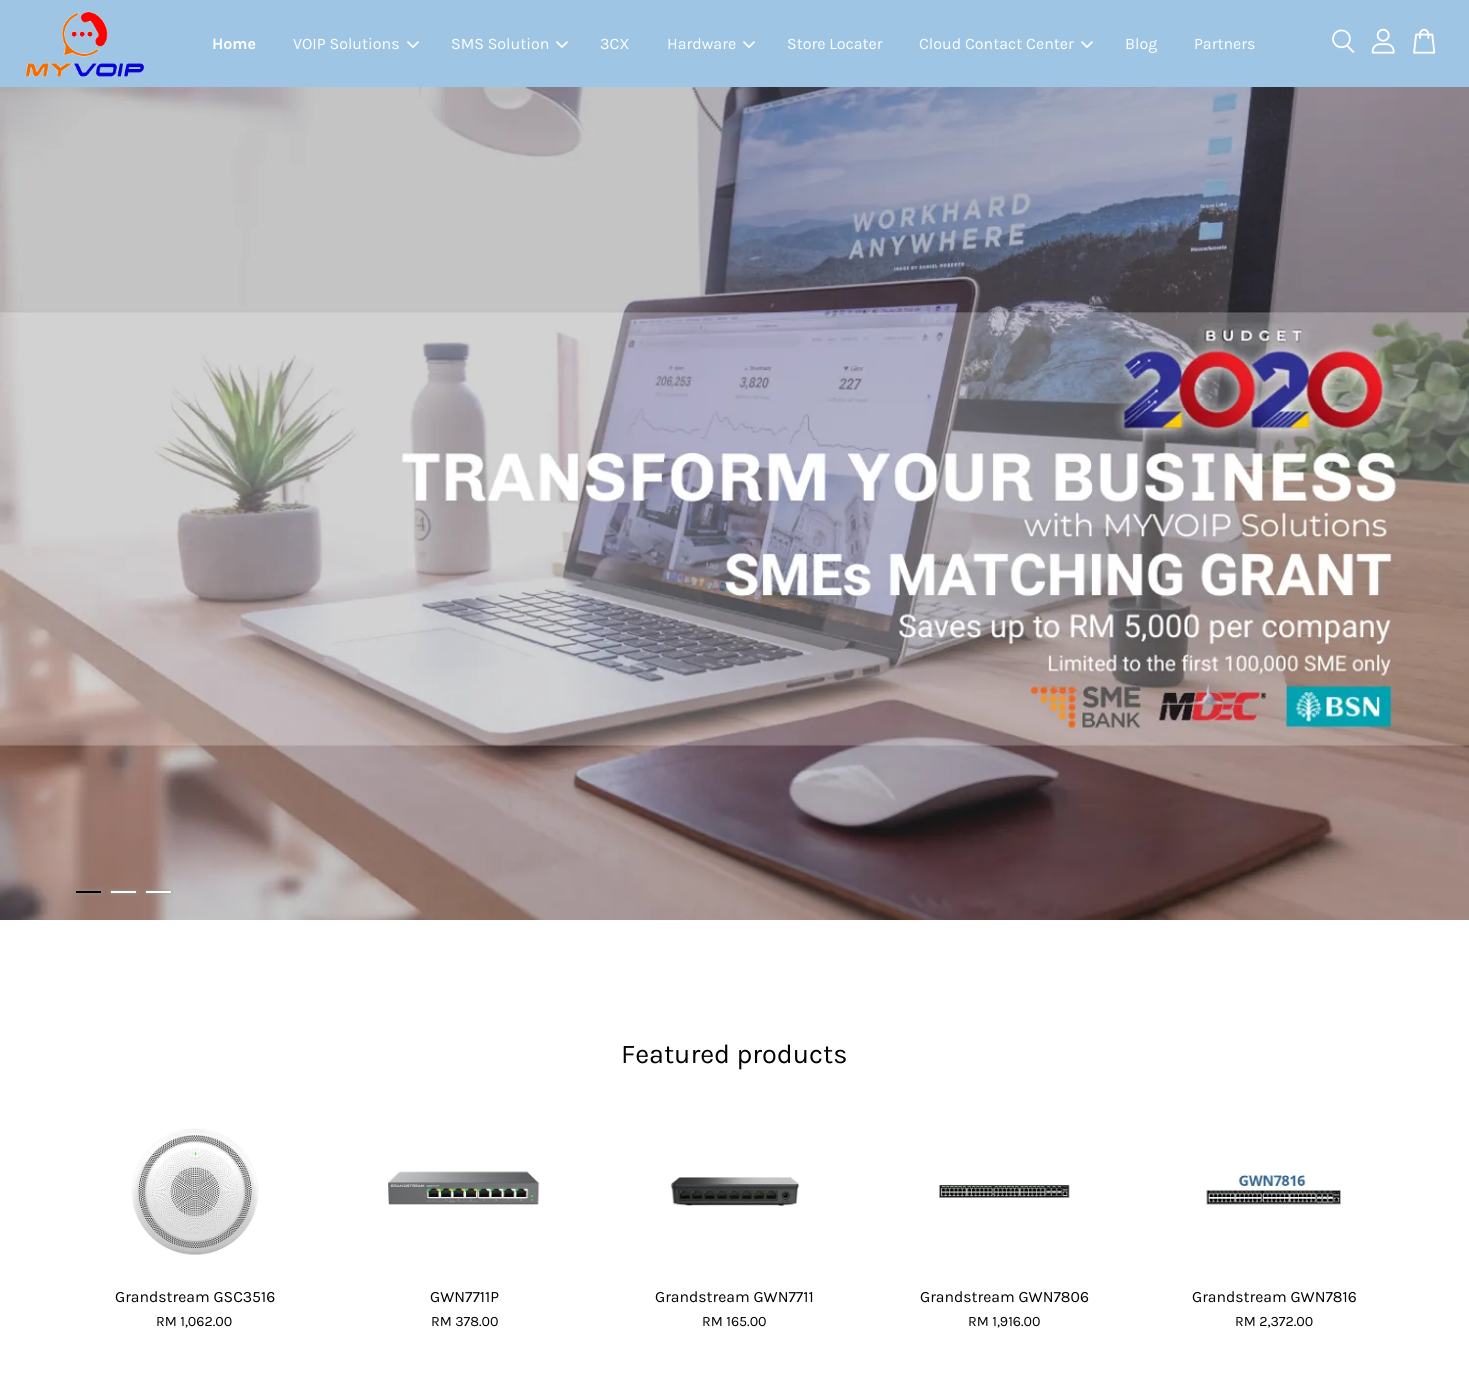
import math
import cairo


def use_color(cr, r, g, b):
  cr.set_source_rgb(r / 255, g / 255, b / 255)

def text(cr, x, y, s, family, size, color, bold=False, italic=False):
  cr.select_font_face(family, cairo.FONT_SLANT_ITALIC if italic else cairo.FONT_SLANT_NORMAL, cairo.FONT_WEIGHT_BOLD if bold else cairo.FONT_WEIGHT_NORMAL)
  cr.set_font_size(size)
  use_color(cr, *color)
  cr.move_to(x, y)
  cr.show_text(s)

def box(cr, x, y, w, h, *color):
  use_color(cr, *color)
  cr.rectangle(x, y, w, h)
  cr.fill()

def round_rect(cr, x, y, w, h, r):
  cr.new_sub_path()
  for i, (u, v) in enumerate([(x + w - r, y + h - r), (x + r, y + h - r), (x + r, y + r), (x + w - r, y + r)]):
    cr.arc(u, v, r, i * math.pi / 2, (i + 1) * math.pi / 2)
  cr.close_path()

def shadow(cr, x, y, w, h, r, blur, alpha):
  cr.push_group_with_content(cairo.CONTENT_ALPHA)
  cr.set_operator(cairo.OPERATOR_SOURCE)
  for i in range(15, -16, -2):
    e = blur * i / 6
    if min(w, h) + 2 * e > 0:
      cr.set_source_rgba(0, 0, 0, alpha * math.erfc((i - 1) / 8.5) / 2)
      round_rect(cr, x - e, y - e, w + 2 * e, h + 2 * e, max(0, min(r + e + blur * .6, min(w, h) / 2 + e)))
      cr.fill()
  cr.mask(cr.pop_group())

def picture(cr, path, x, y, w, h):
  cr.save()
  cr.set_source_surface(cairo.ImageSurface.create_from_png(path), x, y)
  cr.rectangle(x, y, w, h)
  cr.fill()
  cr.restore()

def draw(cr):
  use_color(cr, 255, 255, 255)
  cr.paint()
  box(cr, 0, 0, 1469, 87, 158, 197, 228)
  picture(cr, "img_01.png", 25, 11, 120, 66)
  picture(cr, "img_02.png", 407, 41, 12, 7)
  picture(cr, "img_02.png", 556, 41, 12, 7)
  picture(cr, "img_02.png", 743, 41, 12, 7)
  picture(cr, "img_02.png", 1081, 41, 12, 7)
  picture(cr, "img_03.png", 1332, 29, 23, 24)
  picture(cr, "img_04.png", 1371, 28, 24, 26)
  picture(cr, "img_05.png", 1413, 28, 23, 26)
  picture(cr, "img_06.png", 0, 87, 1469, 833)
  use_color(cr, 153, 153, 153)
  shadow(cr, 76, 891, 25, 2, 0, 1.5, 1)
  box(cr, 76, 891, 25, 2, 0, 0, 0)
  use_color(cr, 153, 153, 153)
  shadow(cr, 111, 891, 25, 2, 0, 1.5, 1)
  box(cr, 111, 891, 25, 2, 255, 255, 255)
  use_color(cr, 153, 153, 153)
  shadow(cr, 146, 891, 25, 2, 0, 1.5, 1)
  box(cr, 146, 891, 25, 2, 255, 255, 255)
  picture(cr, "img_07.png", 131, 1128, 128, 127)
  picture(cr, "img_08.png", 388, 1171, 152, 34)
  picture(cr, "img_09.png", 670, 1177, 130, 30)
  picture(cr, "img_10.png", 939, 1184, 131, 14)
  picture(cr, "img_11.png", 1206, 1173, 135, 32)
  text(cr, 212, 49, "Home", "Karla", 16, (255, 255, 255), bold=True)
  text(cr, 293, 49, "VOIP Solutions", "Karla", 16, (255, 255, 255))
  text(cr, 451, 49, "SMS Solution", "Karla", 16, (255, 255, 255))
  text(cr, 600, 49, "3CX", "Karla", 16, (255, 255, 255))
  text(cr, 667, 49, "Hardware", "Karla", 16, (255, 255, 255))
  text(cr, 787, 49, "Store Locater", "Karla", 16, (255, 255, 255))
  text(cr, 919, 49, "Cloud Contact Center", "Karla", 16, (255, 255, 255))
  text(cr, 1125, 49, "Blog", "Karla", 16, (255, 255, 255))
  text(cr, 1194, 49, "Partners", "Karla", 16, (255, 255, 255))
  text(cr, 621, 1063, "Featured products", "Karla", 27, (0, 0, 0))
  text(cr, 115, 1302, "Grandstream GSC3516", "Karla", 15.75, (0, 0, 0))
  text(cr, 156, 1326, "RM 1,062.00", "Karla", 14.25, (0, 0, 0))
  text(cr, 430, 1302, "GWN7711P", "Karla", 15.75, (0, 0, 0))
  text(cr, 431, 1326, "RM 378.00", "Karla", 14.25, (0, 0, 0))
  text(cr, 655, 1302, "Grandstream GWN7711", "Karla", 15.75, (0, 0, 0))
  text(cr, 702, 1326, "RM 165.00", "Karla", 14.25, (0, 0, 0))
  text(cr, 920, 1302, "Grandstream GWN7806", "Karla", 15.75, (0, 0, 0))
  text(cr, 968, 1326, "RM 1,916.00", "Karla", 14.25, (0, 0, 0))
  text(cr, 1192, 1302, "Grandstream GWN7816", "Karla", 15.75, (0, 0, 0))
  text(cr, 1235, 1326, "RM 2,372.00", "Karla", 14.25, (0, 0, 0))


surface = cairo.ImageSurface(cairo.FORMAT_RGB24, 1469, 1376)
cr = cairo.Context(surface)
options = cairo.FontOptions()
options.set_hint_metrics(cairo.HINT_METRICS_OFF)
options.set_hint_style(cairo.HINT_STYLE_NONE)
cr.set_font_options(options)
cr.set_miter_limit(4)
draw(cr)
surface.write_to_png("out.png")
